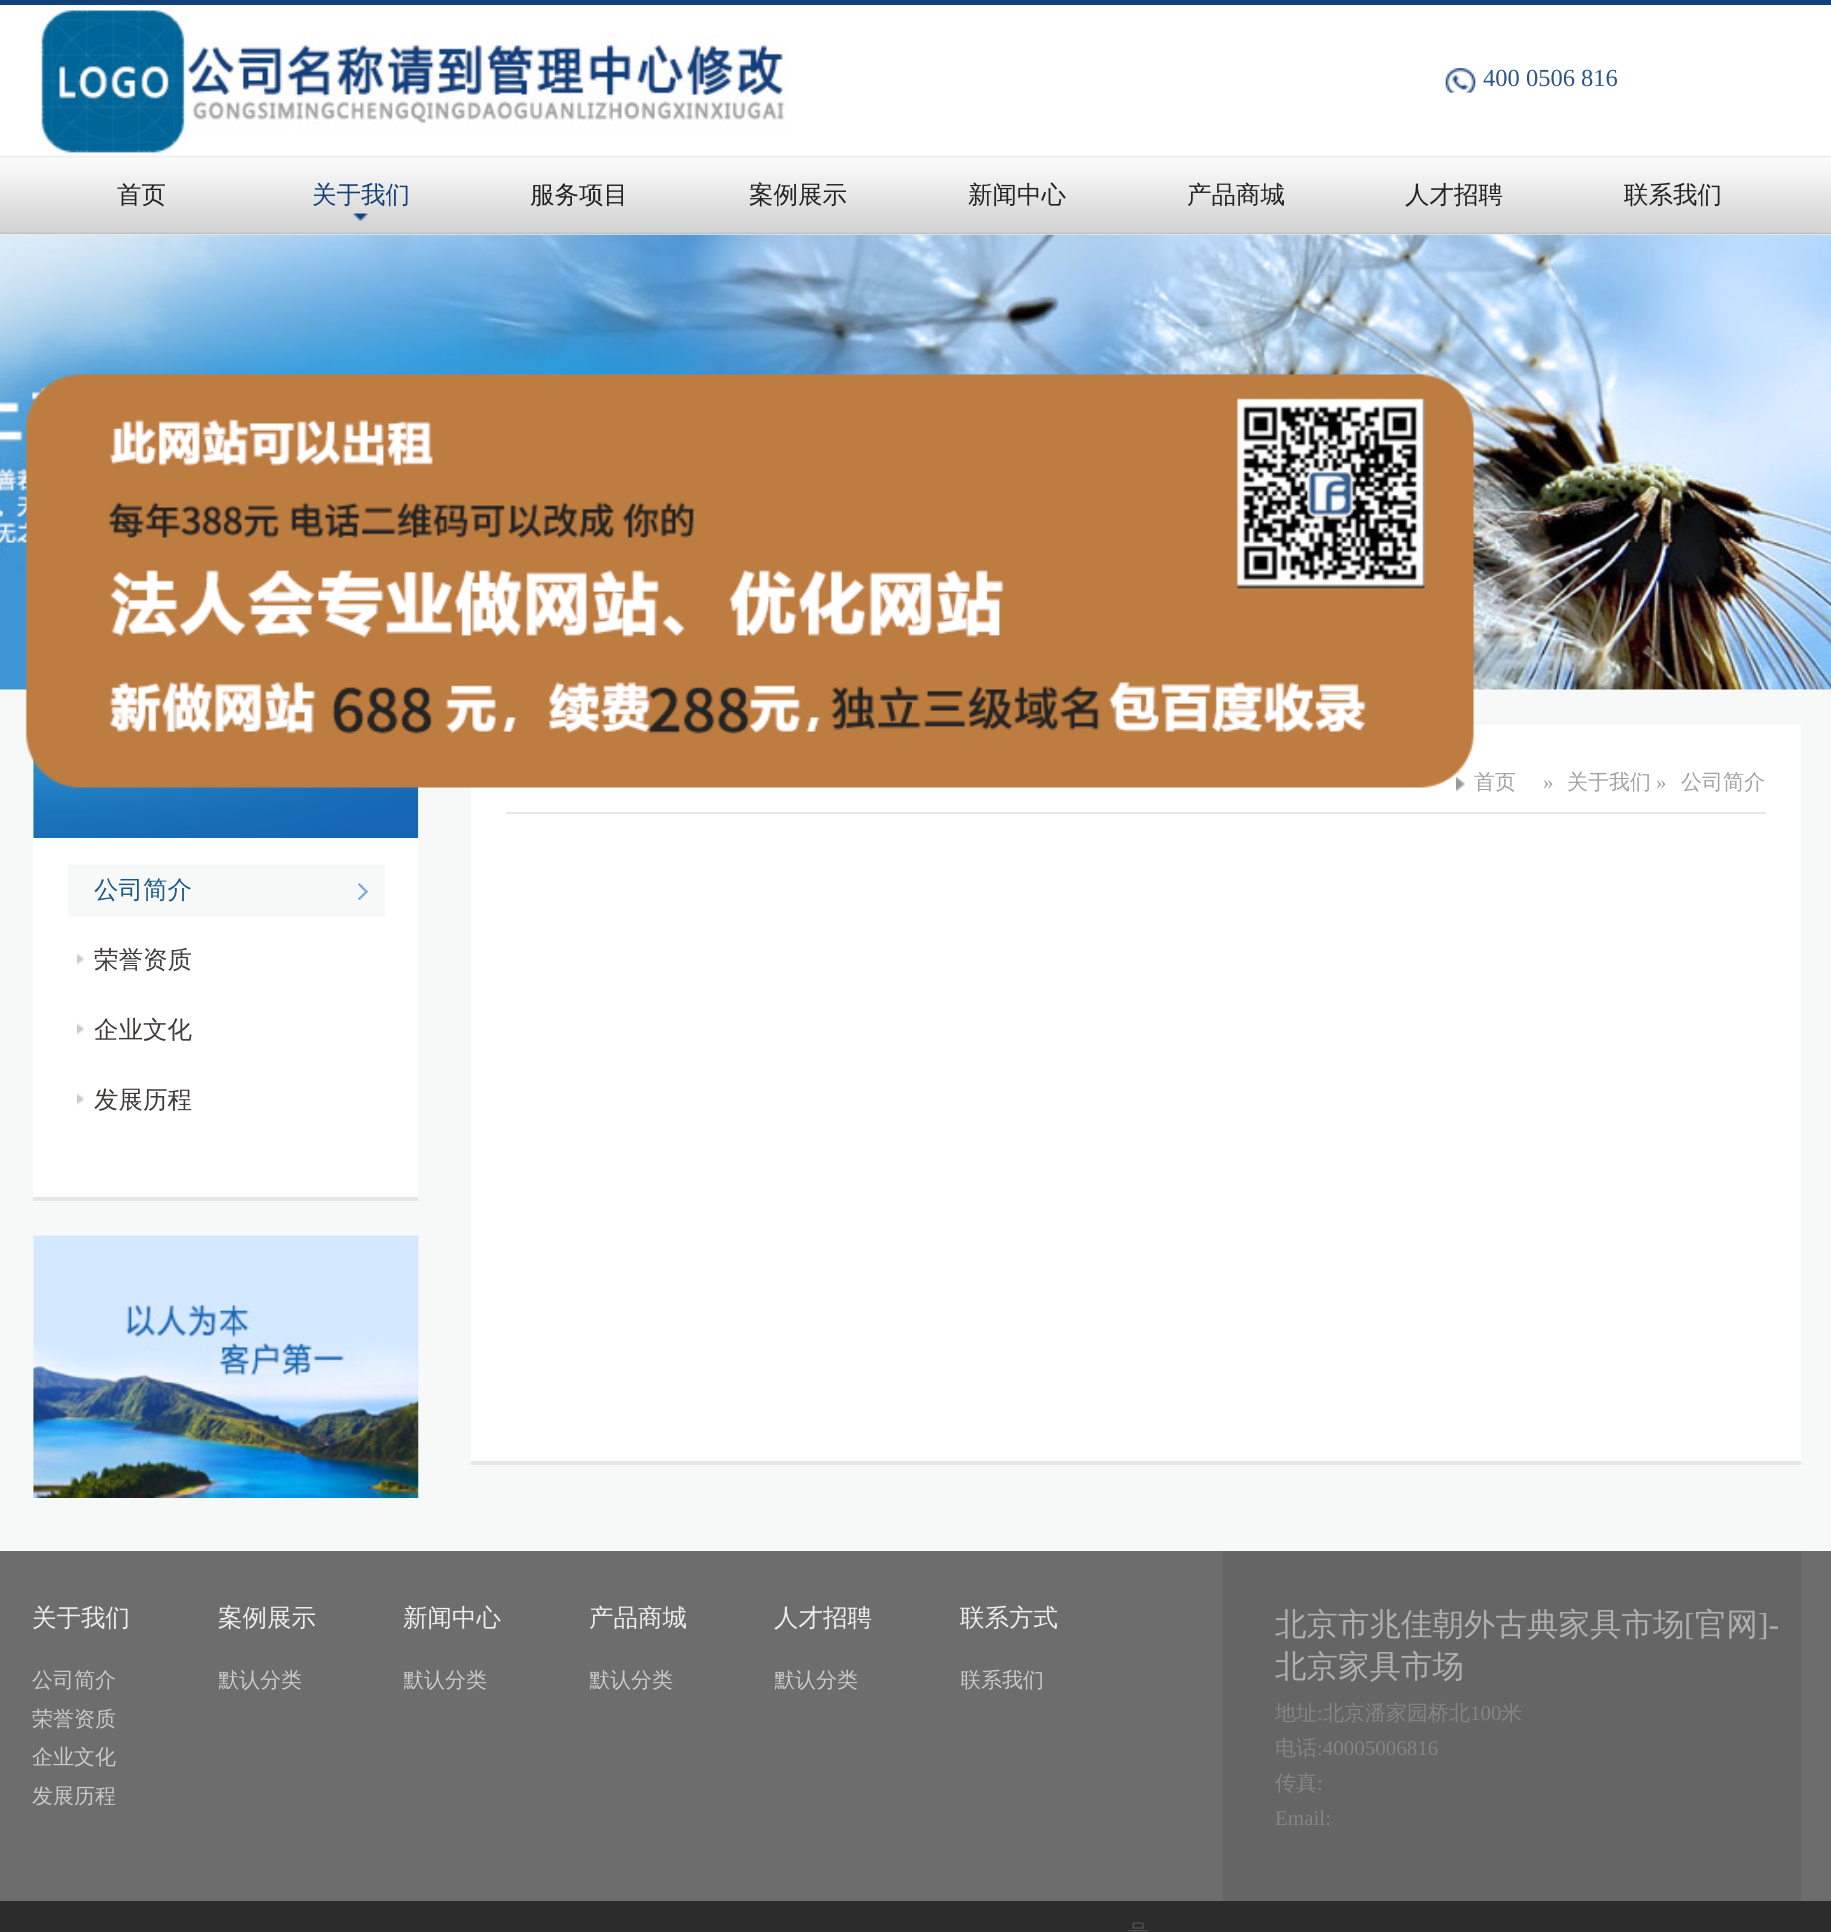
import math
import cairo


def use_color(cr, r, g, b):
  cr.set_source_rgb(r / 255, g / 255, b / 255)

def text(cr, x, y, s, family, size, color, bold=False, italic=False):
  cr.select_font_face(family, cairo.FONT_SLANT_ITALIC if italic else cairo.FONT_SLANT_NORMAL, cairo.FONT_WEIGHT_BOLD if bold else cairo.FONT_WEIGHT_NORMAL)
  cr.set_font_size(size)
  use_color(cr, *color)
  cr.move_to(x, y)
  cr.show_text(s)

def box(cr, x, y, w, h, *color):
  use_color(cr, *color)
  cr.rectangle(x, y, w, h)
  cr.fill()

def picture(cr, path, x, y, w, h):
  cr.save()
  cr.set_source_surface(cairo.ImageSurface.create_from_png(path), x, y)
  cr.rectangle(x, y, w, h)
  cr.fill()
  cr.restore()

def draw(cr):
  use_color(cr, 255, 255, 255)
  cr.paint()
  box(cr, 0, 0, 1831, 5, 18, 64, 122)
  picture(cr, "img_01.png", 34, 6, 755, 150)
  picture(cr, "img_02.png", 1445, 68, 31, 25)
  picture(cr, "img_03.png", 0, 155, 1831, 80)
  picture(cr, "img_04.png", 353, 213, 15, 8)
  picture(cr, "img_06.png", 0, 234, 1831, 456)
  box(cr, 0, 690, 1831, 861, 247, 248, 248)
  box(cr, 471, 725, 1330, 736, 255, 255, 255)
  picture(cr, "img_07.png", 1456, 777, 9, 15)
  picture(cr, "img_08.png", 33, 755, 386, 83)
  picture(cr, "img_05.png", 25, 374, 1449, 414)
  box(cr, 471, 1461, 1330, 4, 230, 230, 230)
  box(cr, 506, 812, 1260, 2, 230, 230, 230)
  box(cr, 33, 838, 385, 359, 255, 255, 255)
  box(cr, 33, 1197, 385, 4, 230, 230, 230)
  picture(cr, "img_09.png", 68, 864, 317, 53)
  picture(cr, "img_10.png", 77, 953, 7, 12)
  picture(cr, "img_10.png", 77, 1023, 7, 12)
  picture(cr, "img_10.png", 77, 1093, 7, 12)
  picture(cr, "img_11.png", 33, 1235, 386, 263)
  box(cr, 0, 1551, 1831, 350, 109, 109, 109)
  box(cr, 1223, 1551, 578, 350, 101, 101, 101)
  box(cr, 0, 1901, 1831, 31, 44, 44, 44)
  text(cr, 1483, 86, "400 0506 816", "Liberation Serif", 24.5, (43, 84, 136))
  text(cr, 117, 203, "首页", "WenQuanYi Zen Hei Medium", 24.5, (34, 34, 34))
  text(cr, 312, 203, "关于我们", "WenQuanYi Zen Hei Medium", 24.5, (18, 64, 122))
  text(cr, 530, 203, "服务项目", "WenQuanYi Zen Hei Medium", 24.5, (34, 34, 34))
  text(cr, 749, 203, "案例展示", "WenQuanYi Zen Hei Medium", 24.5, (34, 34, 34))
  text(cr, 968, 203, "新闻中心", "WenQuanYi Zen Hei Medium", 24.5, (34, 34, 34))
  text(cr, 1187, 203, "产品商城", "WenQuanYi Zen Hei Medium", 24.5, (34, 34, 34))
  text(cr, 1405, 203, "人才招聘", "WenQuanYi Zen Hei Medium", 24.5, (34, 34, 34))
  text(cr, 1624, 203, "联系我们", "WenQuanYi Zen Hei Medium", 24.5, (34, 34, 34))
  text(cr, 1474, 789, "首页", "WenQuanYi Zen Hei Medium", 21, (161, 161, 161))
  text(cr, 1543, 789, "»", "Liberation Serif", 21, (161, 161, 161))
  text(cr, 1567, 789, "关于我们", "WenQuanYi Zen Hei Medium", 21, (161, 161, 161))
  text(cr, 1656, 789, "»", "Liberation Serif", 21, (161, 161, 161))
  text(cr, 1681, 789, "公司简介", "WenQuanYi Zen Hei Medium", 21, (161, 161, 161))
  text(cr, 94, 898, "公司简介", "WenQuanYi Zen Hei Medium", 24.5, (25, 88, 139))
  text(cr, 94, 968, "荣誉资质", "WenQuanYi Zen Hei Medium", 24.5, (62, 58, 57))
  text(cr, 94, 1038, "企业文化", "WenQuanYi Zen Hei Medium", 24.5, (62, 58, 57))
  text(cr, 94, 1108, "发展历程", "WenQuanYi Zen Hei Medium", 24.5, (62, 58, 57))
  text(cr, 32, 1626, "关于我们", "WenQuanYi Zen Hei Medium", 24.5, (238, 238, 238))
  text(cr, 32, 1687, "公司简介", "WenQuanYi Zen Hei Medium", 21, (201, 202, 202))
  text(cr, 32, 1726, "荣誉资质", "WenQuanYi Zen Hei Medium", 21, (201, 202, 202))
  text(cr, 32, 1764, "企业文化", "WenQuanYi Zen Hei Medium", 21, (201, 202, 202))
  text(cr, 32, 1803, "发展历程", "WenQuanYi Zen Hei Medium", 21, (201, 202, 202))
  text(cr, 218, 1626, "案例展示", "WenQuanYi Zen Hei Medium", 24.5, (238, 238, 238))
  cr.save()
  cr.rectangle(219, 1635, 98, 64)
  cr.clip()
  text(cr, 218, 1687, "默认分类", "WenQuanYi Zen Hei Medium", 21, (201, 202, 202))
  cr.restore()
  text(cr, 403, 1626, "新闻中心", "WenQuanYi Zen Hei Medium", 24.5, (238, 238, 238))
  cr.save()
  cr.rectangle(404, 1635, 98, 64)
  cr.clip()
  text(cr, 403, 1687, "默认分类", "WenQuanYi Zen Hei Medium", 21, (201, 202, 202))
  cr.restore()
  text(cr, 589, 1626, "产品商城", "WenQuanYi Zen Hei Medium", 24.5, (238, 238, 238))
  cr.save()
  cr.rectangle(590, 1635, 98, 64)
  cr.clip()
  text(cr, 589, 1687, "默认分类", "WenQuanYi Zen Hei Medium", 21, (201, 202, 202))
  cr.restore()
  text(cr, 774, 1626, "人才招聘", "WenQuanYi Zen Hei Medium", 24.5, (238, 238, 238))
  cr.save()
  cr.rectangle(775, 1635, 98, 64)
  cr.clip()
  text(cr, 774, 1687, "默认分类", "WenQuanYi Zen Hei Medium", 21, (201, 202, 202))
  cr.restore()
  text(cr, 960, 1626, "联系方式", "WenQuanYi Zen Hei Medium", 24.5, (238, 238, 238))
  cr.save()
  cr.rectangle(961, 1635, 98, 64)
  cr.clip()
  text(cr, 960, 1687, "联系我们", "WenQuanYi Zen Hei Medium", 21, (201, 202, 202))
  cr.restore()
  text(cr, 1275, 1635, "北京市兆佳朝外古典家具市场", "WenQuanYi Zen Hei Medium", 31.5, (175, 175, 175))
  text(cr, 1684, 1635, "[", "Liberation Serif", 31.5, (175, 175, 175))
  text(cr, 1695, 1635, "官网", "WenQuanYi Zen Hei Medium", 31.5, (175, 175, 175))
  text(cr, 1758, 1635, "]-", "Liberation Serif", 31.5, (175, 175, 175))
  text(cr, 1275, 1677, "北京家具市场", "WenQuanYi Zen Hei Medium", 31.5, (175, 175, 175))
  text(cr, 1275, 1720, "地址", "WenQuanYi Zen Hei Medium", 21, (133, 133, 133))
  text(cr, 1317, 1720, ":", "Liberation Serif", 21, (133, 133, 133))
  text(cr, 1323, 1720, "北京潘家园桥北", "WenQuanYi Zen Hei Medium", 21, (133, 133, 133))
  text(cr, 1470, 1720, "100", "Liberation Serif", 21, (133, 133, 133))
  text(cr, 1501, 1720, "米", "WenQuanYi Zen Hei Medium", 21, (133, 133, 133))
  text(cr, 1275, 1755, "电话", "WenQuanYi Zen Hei Medium", 21, (133, 133, 133))
  text(cr, 1317, 1755, ":40005006816", "Liberation Serif", 21, (133, 133, 133))
  text(cr, 1275, 1790, "传真", "WenQuanYi Zen Hei Medium", 21, (133, 133, 133))
  text(cr, 1317, 1790, ":", "Liberation Serif", 21, (133, 133, 133))
  text(cr, 1275, 1825, "Email:", "Liberation Serif", 21, (133, 133, 133))
  text(cr, 1128, 1939, "号", "WenQuanYi Zen Hei Medium", 21, (80, 80, 80))


surface = cairo.ImageSurface(cairo.FORMAT_RGB24, 1831, 1932)
cr = cairo.Context(surface)
options = cairo.FontOptions()
options.set_hint_metrics(cairo.HINT_METRICS_OFF)
options.set_hint_style(cairo.HINT_STYLE_NONE)
cr.set_font_options(options)
cr.set_miter_limit(4)
draw(cr)
surface.write_to_png("out.png")
